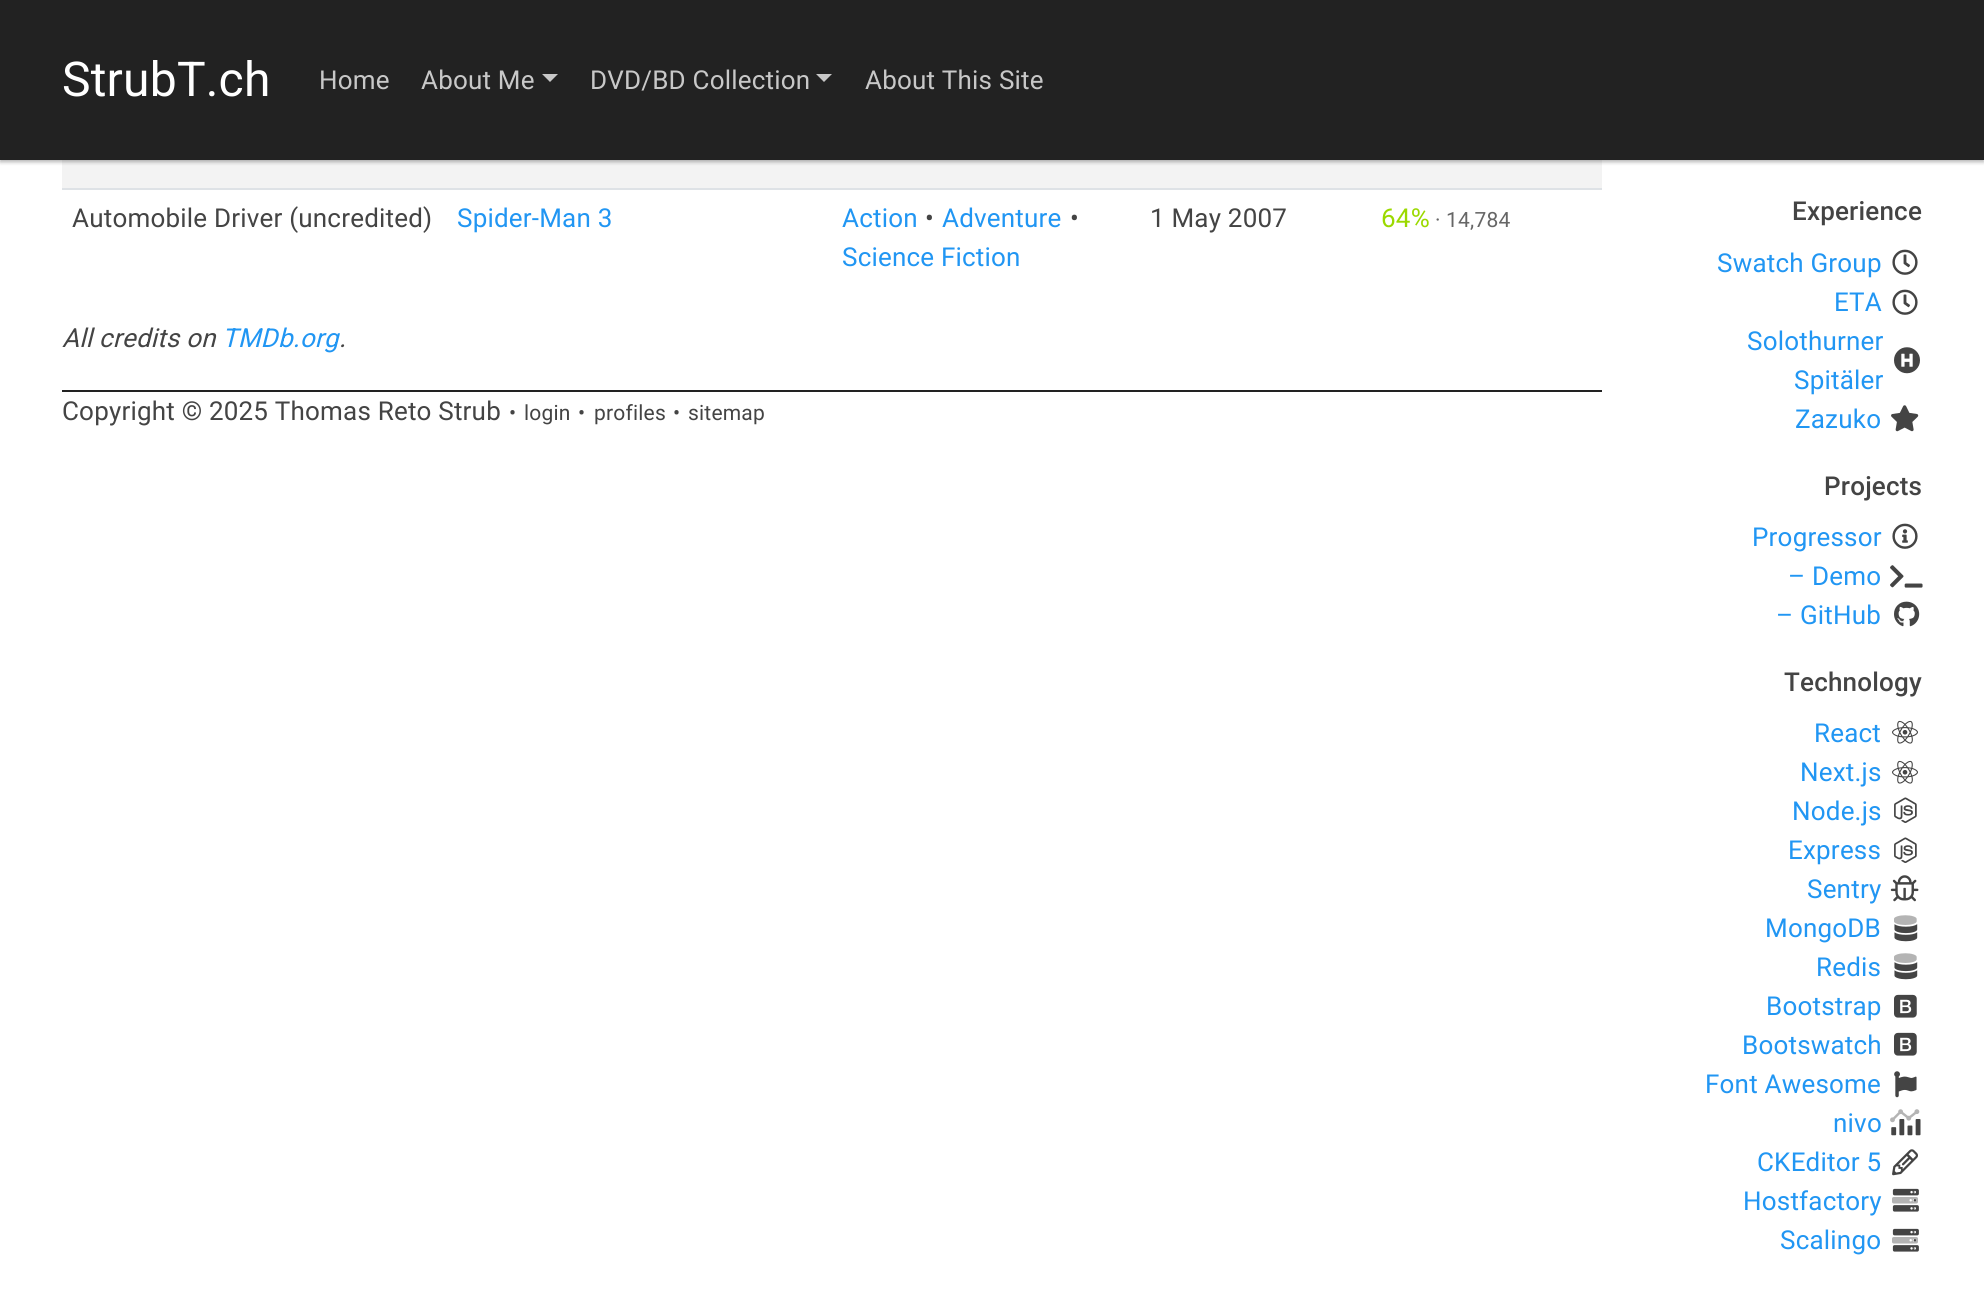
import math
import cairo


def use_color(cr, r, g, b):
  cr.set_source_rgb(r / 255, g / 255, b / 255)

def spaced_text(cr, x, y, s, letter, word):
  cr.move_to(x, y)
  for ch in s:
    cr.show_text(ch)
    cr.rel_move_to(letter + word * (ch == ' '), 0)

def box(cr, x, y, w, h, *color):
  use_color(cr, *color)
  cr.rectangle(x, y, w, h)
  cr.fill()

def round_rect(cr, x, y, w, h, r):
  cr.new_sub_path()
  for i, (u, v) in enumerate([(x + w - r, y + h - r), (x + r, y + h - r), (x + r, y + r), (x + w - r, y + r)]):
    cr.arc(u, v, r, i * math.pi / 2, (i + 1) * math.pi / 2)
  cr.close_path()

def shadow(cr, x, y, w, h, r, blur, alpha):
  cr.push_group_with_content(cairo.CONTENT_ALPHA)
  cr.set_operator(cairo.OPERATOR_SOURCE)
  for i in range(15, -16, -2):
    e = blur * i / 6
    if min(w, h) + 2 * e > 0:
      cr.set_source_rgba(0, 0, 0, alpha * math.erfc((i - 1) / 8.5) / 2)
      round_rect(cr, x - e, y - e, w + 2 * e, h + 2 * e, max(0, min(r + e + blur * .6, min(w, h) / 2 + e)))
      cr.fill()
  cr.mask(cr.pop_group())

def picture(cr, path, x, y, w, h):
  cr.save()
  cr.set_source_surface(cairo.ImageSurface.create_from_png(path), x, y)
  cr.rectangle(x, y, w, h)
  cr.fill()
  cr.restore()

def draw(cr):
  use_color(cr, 255, 255, 255)
  cr.paint()
  box(cr, 62, 160, 1540, 28, 243, 243, 243)
  use_color(cr, 0, 0, 0)
  shadow(cr, 0, 2, 1984, 160, 0, 2, 0.3)
  box(cr, 0, 0, 1984, 160, 34, 34, 34)
  use_color(cr, 200, 200, 200)
  cr.new_path()
  cr.move_to(542, 74)
  cr.line_to(558, 74)
  cr.line_to(550, 82)
  cr.close_path()
  cr.fill()
  cr.new_path()
  cr.move_to(816, 74)
  cr.line_to(832, 74)
  cr.line_to(824, 82)
  cr.close_path()
  cr.fill()
  box(cr, 62, 188, 1540, 2, 222, 226, 230)
  box(cr, 62, 390, 1540, 2, 34, 34, 34)
  picture(cr, "img_01.png", 1892, 249, 26, 26)
  picture(cr, "img_01.png", 1892, 289, 26, 26)
  picture(cr, "img_02.png", 1894, 347, 26, 27)
  picture(cr, "img_03.png", 1891, 405, 28, 27)
  picture(cr, "img_04.png", 1892, 523, 26, 26)
  picture(cr, "img_05.png", 1890, 565, 33, 23)
  picture(cr, "img_06.png", 1894, 601, 26, 26)
  picture(cr, "img_07.png", 1892, 720, 26, 24)
  picture(cr, "img_07.png", 1892, 760, 26, 24)
  picture(cr, "img_08.png", 1894, 797, 23, 26)
  picture(cr, "img_08.png", 1894, 837, 23, 26)
  picture(cr, "img_09.png", 1890, 875, 29, 27)
  picture(cr, "img_11.png", 1894, 924, 24, 18)
  picture(cr, "img_10.png", 1894, 915, 23, 10)
  picture(cr, "img_11.png", 1894, 962, 24, 18)
  picture(cr, "img_10.png", 1894, 953, 23, 10)
  picture(cr, "img_12.png", 1894, 994, 23, 24)
  picture(cr, "img_12.png", 1894, 1032, 23, 24)
  picture(cr, "img_13.png", 1894, 1071, 23, 27)
  picture(cr, "img_15.png", 1891, 1119, 30, 17)
  picture(cr, "img_14.png", 1890, 1109, 30, 14)
  picture(cr, "img_16.png", 1892, 1149, 26, 27)
  picture(cr, "img_17.png", 1892, 1188, 27, 24)
  picture(cr, "img_18.png", 1892, 1191, 26, 19)
  picture(cr, "img_17.png", 1892, 1228, 27, 24)
  picture(cr, "img_18.png", 1892, 1231, 26, 19)
  cr.select_font_face("Roboto")
  cr.set_font_size(48)
  use_color(cr, 255, 255, 255)
  spaced_text(cr, 62, 96, "StrubT.ch", 0.2, 0)
  cr.set_font_size(26)
  use_color(cr, 200, 200, 200)
  spaced_text(cr, 319, 89, "Home", 0.2, 0)
  spaced_text(cr, 421, 89, "About Me", 0.2, 0)
  spaced_text(cr, 590, 89, "DVD/BD Collection", 0.2, 0)
  spaced_text(cr, 865, 89, "About This Site", 0.2, 0)
  use_color(cr, 68, 68, 68)
  spaced_text(cr, 72, 227, "Automobile Driver (uncredited)", 0.2, 0)
  use_color(cr, 33, 150, 243)
  spaced_text(cr, 457, 227, "Spider-Man 3", 0.2, 0)
  spaced_text(cr, 842, 227, "Action", 0.2, 0)
  use_color(cr, 68, 68, 68)
  spaced_text(cr, 925, 227, "•", 0.2, 0)
  use_color(cr, 33, 150, 243)
  spaced_text(cr, 942, 227, "Adventure", 0.2, 0)
  use_color(cr, 68, 68, 68)
  spaced_text(cr, 1070, 227, "•", 0.2, 0)
  use_color(cr, 33, 150, 243)
  spaced_text(cr, 842, 266, "Science Fiction", 0.2, 0)
  use_color(cr, 68, 68, 68)
  spaced_text(cr, 1150, 227, "1 May 2007", 0.2, 0)
  use_color(cr, 155, 217, 0)
  spaced_text(cr, 1381, 227, "64%", 0.2, 0)
  cr.set_font_size(21)
  use_color(cr, 102, 102, 102)
  spaced_text(cr, 1435, 227, "· 14,784", 0.2, 0)
  cr.select_font_face("Roboto", cairo.FONT_SLANT_ITALIC)
  cr.set_font_size(26)
  use_color(cr, 68, 68, 68)
  spaced_text(cr, 62, 347, "All credits on", 0.2, 0)
  use_color(cr, 33, 150, 243)
  spaced_text(cr, 222, 347, "TMDb.org", 0.2, 0)
  use_color(cr, 68, 68, 68)
  spaced_text(cr, 339, 347, ".", 0.2, 0)
  cr.select_font_face("Roboto")
  spaced_text(cr, 62, 420, "Copyright © 2025 Thomas Reto Strub", 0.2, 0)
  cr.set_font_size(21)
  spaced_text(cr, 509, 420, "•", 0.2, 0)
  spaced_text(cr, 524, 420, "login", 0.2, 0)
  spaced_text(cr, 578, 420, "•", 0.2, 0)
  spaced_text(cr, 594, 420, "profiles", 0.2, 0)
  spaced_text(cr, 673, 420, "•", 0.2, 0)
  spaced_text(cr, 688, 420, "sitemap", 0.2, 0)
  cr.select_font_face("Roboto Medium")
  cr.set_font_size(26)
  spaced_text(cr, 1792, 220, "Experience", 0.2, 0)
  cr.select_font_face("Roboto")
  use_color(cr, 33, 150, 243)
  spaced_text(cr, 1717, 272, "Swatch Group", 0.2, 0)
  spaced_text(cr, 1834, 311, "ETA", 0.2, 0)
  spaced_text(cr, 1747, 350, "Solothurner", 0.2, 0)
  spaced_text(cr, 1794, 389, "Spitäler", 0.2, 0)
  spaced_text(cr, 1795, 428, "Zazuko", 0.2, 0)
  cr.select_font_face("Roboto Medium")
  use_color(cr, 68, 68, 68)
  spaced_text(cr, 1824, 495, "Projects", 0.2, 0)
  cr.select_font_face("Roboto")
  use_color(cr, 33, 150, 243)
  spaced_text(cr, 1752, 546, "Progressor", 0.2, 0)
  spaced_text(cr, 1788, 585, "– Demo", 0.2, 0)
  spaced_text(cr, 1776, 624, "– GitHub", 0.2, 0)
  cr.select_font_face("Roboto Medium")
  use_color(cr, 68, 68, 68)
  spaced_text(cr, 1784, 691, "Technology", 0.2, 0)
  cr.select_font_face("Roboto")
  use_color(cr, 33, 150, 243)
  spaced_text(cr, 1814, 742, "React", 0.2, 0)
  spaced_text(cr, 1800, 781, "Next.js", 0.2, 0)
  spaced_text(cr, 1792, 820, "Node.js", 0.2, 0)
  spaced_text(cr, 1788, 859, "Express", 0.2, 0)
  spaced_text(cr, 1807, 898, "Sentry", 0.2, 0)
  spaced_text(cr, 1765, 937, "MongoDB", 0.2, 0)
  spaced_text(cr, 1816, 976, "Redis", 0.2, 0)
  spaced_text(cr, 1766, 1015, "Bootstrap", 0.2, 0)
  spaced_text(cr, 1742, 1054, "Bootswatch", 0.2, 0)
  spaced_text(cr, 1705, 1093, "Font Awesome", 0.2, 0)
  spaced_text(cr, 1833, 1132, "nivo", 0.2, 0)
  spaced_text(cr, 1757, 1171, "CKEditor 5", 0.2, 0)
  spaced_text(cr, 1743, 1210, "Hostfactory", 0.2, 0)
  spaced_text(cr, 1780, 1249, "Scalingo", 0.2, 0)


surface = cairo.ImageSurface(cairo.FORMAT_RGB24, 1984, 1291)
cr = cairo.Context(surface)
options = cairo.FontOptions()
options.set_hint_metrics(cairo.HINT_METRICS_OFF)
options.set_hint_style(cairo.HINT_STYLE_NONE)
cr.set_font_options(options)
cr.set_miter_limit(4)
draw(cr)
surface.write_to_png("out.png")
